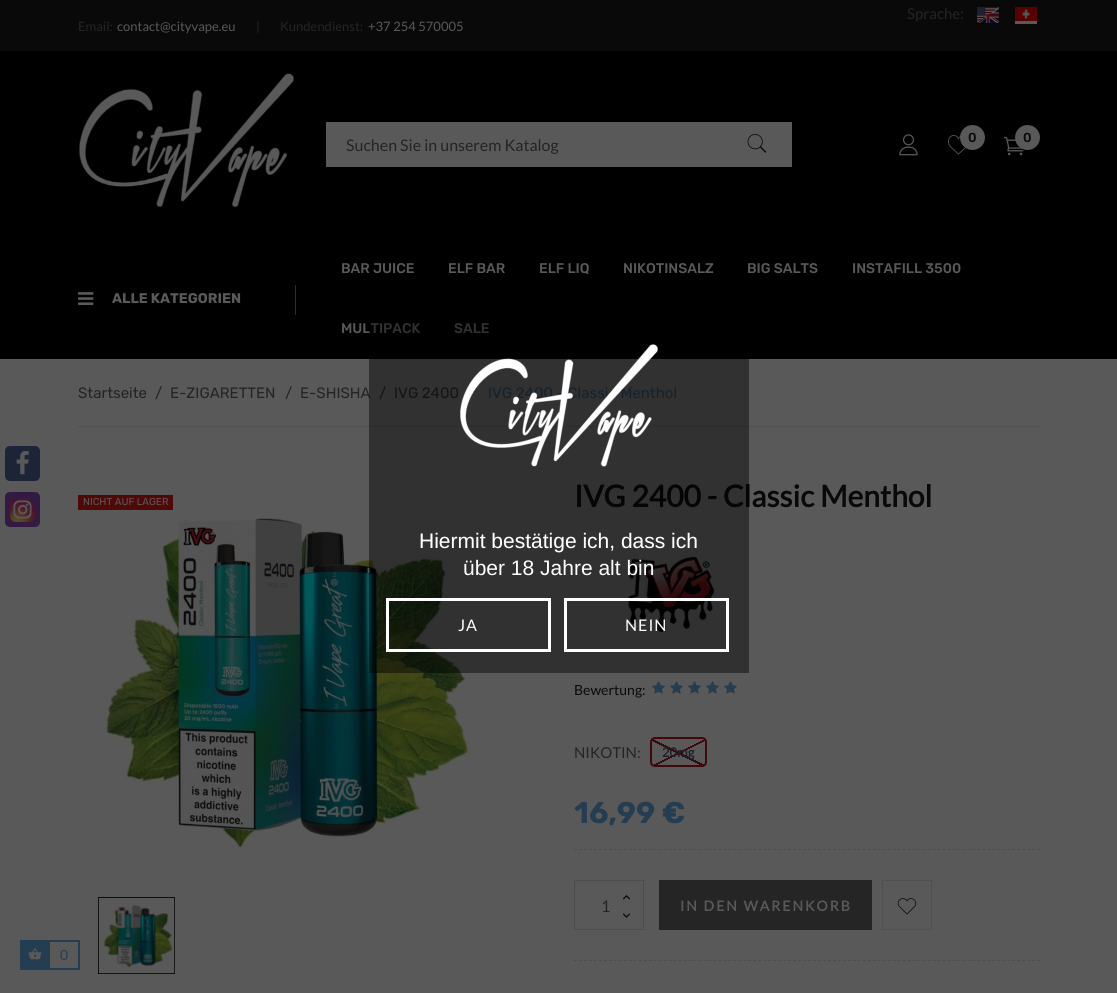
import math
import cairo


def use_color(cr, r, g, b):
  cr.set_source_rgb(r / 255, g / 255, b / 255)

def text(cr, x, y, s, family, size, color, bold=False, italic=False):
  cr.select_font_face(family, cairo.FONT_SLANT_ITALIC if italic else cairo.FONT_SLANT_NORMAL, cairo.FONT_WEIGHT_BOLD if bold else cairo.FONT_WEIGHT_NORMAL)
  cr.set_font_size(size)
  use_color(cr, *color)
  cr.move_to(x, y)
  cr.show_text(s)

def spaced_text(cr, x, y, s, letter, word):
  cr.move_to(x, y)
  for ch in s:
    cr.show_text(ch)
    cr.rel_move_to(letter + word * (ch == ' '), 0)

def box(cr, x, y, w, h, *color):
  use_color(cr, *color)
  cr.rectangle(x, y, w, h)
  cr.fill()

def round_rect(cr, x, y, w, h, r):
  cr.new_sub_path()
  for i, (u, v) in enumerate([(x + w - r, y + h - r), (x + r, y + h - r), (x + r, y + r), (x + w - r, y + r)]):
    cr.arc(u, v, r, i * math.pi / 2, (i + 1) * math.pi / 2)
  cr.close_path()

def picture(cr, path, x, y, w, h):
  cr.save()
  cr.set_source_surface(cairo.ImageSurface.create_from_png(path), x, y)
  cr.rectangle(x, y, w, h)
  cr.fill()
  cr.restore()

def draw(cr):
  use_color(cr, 89, 89, 89)
  cr.paint()
  use_color(cr, 28, 37, 55)
  round_rect(cr, 5, 446, 35, 35, 5)
  cr.fill()
  picture(cr, "img_01.png", 16, 451, 13, 24)
  use_color(cr, 51, 26, 67)
  round_rect(cr, 5, 492, 35, 35, 5)
  cr.fill()
  picture(cr, "img_02.png", 10, 497, 25, 25)
  box(cr, 0, 0, 1117, 51, 9, 9, 9)
  picture(cr, "img_03.png", 977, 7, 22, 16)
  picture(cr, "img_04.png", 1015, 7, 22, 14)
  box(cr, 977, 23, 22, 1, 3, 3, 3)
  box(cr, 1015, 21, 22, 3, 89, 89, 89)
  box(cr, 0, 51, 1117, 308, 0, 0, 0)
  picture(cr, "img_05.png", 79, 73, 215, 135)
  picture(cr, "img_06.png", 899, 134, 19, 22)
  picture(cr, "img_07.png", 948, 135, 18, 20)
  use_color(cr, 89, 89, 89)
  cr.arc(972.5, 137.5, 12.5, 0, 2 * math.pi)
  cr.fill()
  picture(cr, "img_08.png", 1004, 136, 20, 20)
  cr.arc(1027.5, 137.5, 12.5, 0, 2 * math.pi)
  cr.fill()
  box(cr, 326, 122, 466, 45, 89, 89, 89)
  picture(cr, "img_09.png", 747, 134, 20, 19)
  picture(cr, "img_10.png", 78, 292, 16, 13)
  box(cr, 295, 285, 1, 30, 45, 45, 45)
  box(cr, 78, 426, 962, 1, 78, 80, 82)
  box(cr, 78, 495, 95, 15, 80, 9, 9)
  picture(cr, "img_11.png", 102, 518, 368, 335)
  cr.rectangle(98.5, 897.5, 76, 76)
  use_color(cr, 9, 9, 9)
  cr.set_line_width(1)
  cr.stroke()
  picture(cr, "img_12.png", 98, 897, 77, 77)
  picture(cr, "img_13.png", 628, 552, 90, 80)
  picture(cr, "img_14.png", 652, 681, 13, 13)
  picture(cr, "img_14.png", 670, 681, 13, 13)
  picture(cr, "img_14.png", 688, 681, 13, 13)
  picture(cr, "img_14.png", 706, 681, 13, 13)
  picture(cr, "img_14.png", 724, 681, 13, 13)
  gradient = cairo.LinearGradient(668, 731, 689, 773)
  gradient.add_color_stop_rgba(0.5, 0.349, 0.349, 0.349, 1)
  gradient.add_color_stop_rgba(0.5, 0.247, 0.035, 0.047, 1)
  gradient.add_color_stop_rgba(0.54, 0.247, 0.035, 0.047, 1)
  gradient.add_color_stop_rgba(0.54, 0.349, 0.349, 0.349, 1)
  cr.set_source(gradient)
  cr.rectangle(654, 739, 51, 26)
  cr.fill()
  cr.save()
  round_rect(cr, 650, 737, 57, 30, 5)
  cr.clip()
  gradient = cairo.LinearGradient(615, 757, 636, 799)
  gradient.add_color_stop_rgba(0.5, 0.349, 0.349, 0.349, 1)
  gradient.add_color_stop_rgba(0.5, 0.247, 0.035, 0.047, 1)
  gradient.add_color_stop_rgba(0.54, 0.247, 0.035, 0.047, 1)
  gradient.add_color_stop_rgba(0.54, 0.349, 0.349, 0.349, 1)
  cr.set_source(gradient)
  cr.rectangle(650, 765, 2, 1)
  cr.fill()
  cr.restore()
  gradient = cairo.LinearGradient(689, 731, 668, 773)
  gradient.add_color_stop_rgba(0.5, 0.247, 0.035, 0.047, 0)
  gradient.add_color_stop_rgba(0.5, 0.247, 0.035, 0.047, 1)
  gradient.add_color_stop_rgba(0.54, 0.247, 0.035, 0.047, 1)
  gradient.add_color_stop_rgba(0.54, 0.247, 0.035, 0.047, 0)
  cr.set_source(gradient)
  cr.rectangle(652, 739, 52, 26)
  cr.fill()
  cr.save()
  round_rect(cr, 650, 737, 57, 30, 5)
  cr.clip()
  gradient = cairo.LinearGradient(742, 757, 721, 799)
  gradient.add_color_stop_rgba(0.5, 0.349, 0.349, 0.349, 1)
  gradient.add_color_stop_rgba(0.5, 0.247, 0.035, 0.047, 1)
  gradient.add_color_stop_rgba(0.54, 0.247, 0.035, 0.047, 1)
  gradient.add_color_stop_rgba(0.54, 0.349, 0.349, 0.349, 1)
  cr.set_source(gradient)
  cr.rectangle(705, 765, 2, 1)
  cr.fill()
  cr.restore()
  round_rect(cr, 651, 738, 55, 28, 4)
  use_color(cr, 63, 9, 12)
  cr.set_line_width(2)
  cr.stroke()
  cr.new_path()
  cr.move_to(574, 849.5)
  cr.line_to(1040, 849.5)
  use_color(cr, 77, 77, 77)
  cr.set_line_width(1)
  cr.set_dash([3, 1.98])
  cr.stroke()
  cr.new_path()
  cr.move_to(574, 960.5)
  cr.line_to(1040, 960.5)
  cr.stroke()
  cr.rectangle(574.5, 880.5, 69, 49)
  cr.set_dash([])
  cr.stroke()
  picture(cr, "img_15.png", 622, 895, 9, 5)
  picture(cr, "img_16.png", 622, 913, 9, 5)
  box(cr, 659, 880, 213, 50, 37, 37, 37)
  cr.rectangle(882.5, 880.5, 49, 49)
  use_color(cr, 78, 80, 82)
  cr.stroke()
  picture(cr, "img_17.png", 897, 898, 20, 17)
  box(cr, 20, 940, 60, 30, 37, 61, 81)
  picture(cr, "img_19.png", 28, 948, 14, 12)
  box(cr, 50, 942, 28, 26, 89, 89, 89)
  text(cr, 907, 19, "Sprache:", "Lato", 15, (36, 36, 36))
  text(cr, 78, 31, "Email:", "Lato", 13, (36, 36, 36))
  text(cr, 117, 31, "contact@cityvape.eu", "Lato", 13, (89, 89, 89))
  text(cr, 256, 31, "|", "Lato", 13, (36, 36, 36))
  text(cr, 280, 31, "Kundendienst:", "Lato", 13, (36, 36, 36))
  text(cr, 368, 31, "+37 254 570005", "Lato", 13, (89, 89, 89))
  text(cr, 968, 142, "0", "Rubik Medium", 13, (9, 9, 9))
  text(cr, 1023, 142, "0", "Rubik Medium", 13, (9, 9, 9))
  text(cr, 346, 151, "Suchen Sie in unserem Katalog", "Lato", 16, (36, 36, 36))
  text(cr, 112, 303, "ALLE KATEGORIEN", "Rubik", 14, (89, 89, 89), bold=True)
  text(cr, 341, 273, "BAR JUICE", "Rubik Medium", 14, (89, 89, 89))
  text(cr, 448, 273, "ELF BAR", "Rubik Medium", 14, (89, 89, 89))
  text(cr, 539, 273, "ELF LIQ", "Rubik Medium", 14, (89, 89, 89))
  text(cr, 623, 273, "NIKOTINSALZ", "Rubik Medium", 14, (89, 89, 89))
  text(cr, 747, 273, "BIG SALTS", "Rubik Medium", 14, (89, 89, 89))
  text(cr, 852, 273, "INSTAFILL 3500", "Rubik Medium", 14, (89, 89, 89))
  text(cr, 341, 333, "MULTIPACK", "Rubik Medium", 14, (89, 89, 89))
  text(cr, 454, 333, "SALE", "Rubik Medium", 14, (89, 89, 89))
  text(cr, 78, 398, "Startseite", "Rubik", 15, (36, 36, 36))
  text(cr, 155, 398, "/", "Rubik", 15, (36, 36, 36))
  text(cr, 170, 398, "E-ZIGARETTEN", "Rubik", 15, (36, 36, 36))
  text(cr, 285, 398, "/", "Rubik", 15, (36, 36, 36))
  text(cr, 300, 398, "E-SHISHA", "Rubik", 15, (36, 36, 36))
  text(cr, 379, 398, "/", "Rubik", 15, (36, 36, 36))
  text(cr, 394, 398, "IVG 2400", "Rubik", 15, (36, 36, 36))
  text(cr, 488, 398, "IVG 2400 - Classic Menthol", "Rubik", 15, (37, 61, 81))
  text(cr, 83, 505, "NICHT AUF LAGER", "Rubik", 10, (89, 89, 89))
  text(cr, 574, 507, "IVG 2400 - Classic Menthol", "Lato", 30, (9, 9, 9), bold=True)
  text(cr, 574, 695, "Bewertung:", "Lato", 14, (9, 9, 9))
  text(cr, 574, 758, "NIKOTIN:", "Lato", 15, (36, 36, 36))
  text(cr, 662, 757, "20mg", "Lato", 13, (28, 33, 41), bold=True)
  text(cr, 574, 823, "16,99 €", "Rubik", 30, (37, 61, 81), bold=True)
  text(cr, 601, 912, "1", "Lato", 16, (36, 36, 36))
  cr.select_font_face("Lato", cairo.FONT_SLANT_NORMAL, cairo.FONT_WEIGHT_BOLD)
  cr.set_font_size(14)
  use_color(cr, 89, 89, 89)
  spaced_text(cr, 680, 911, "IN DEN WARENKORB", 2, 0)
  cr.set_source_rgba(0, 0, 0, 0.45)
  cr.rectangle(369, 323, 380, 350)
  cr.fill()
  text(cr, 419, 548, "Hiermit bestätige ich, dass ich", "Liberation Sans", 21, (89, 89, 89))
  picture(cr, "img_18.png", 460, 344, 198, 123)
  text(cr, 419, 548, "Hiermit bestätige ich, dass ich", "Liberation Sans", 21, (255, 255, 255))
  text(cr, 463, 575, "über 18 Jahre alt bin", "Liberation Sans", 21, (255, 255, 255))
  cr.rectangle(387.5, 599.5, 162, 51)
  cr.set_line_width(3)
  cr.stroke()
  cr.select_font_face("Lato")
  cr.set_font_size(16)
  spaced_text(cr, 458, 631, "JA", 1, 0)
  cr.rectangle(565.5, 599.5, 162, 51)
  cr.stroke()
  spaced_text(cr, 625, 631, "NEIN", 1, 0)
  text(cr, 60, 960, "0", "Lato", 14, (37, 61, 81))


surface = cairo.ImageSurface(cairo.FORMAT_RGB24, 1117, 993)
cr = cairo.Context(surface)
options = cairo.FontOptions()
options.set_hint_metrics(cairo.HINT_METRICS_OFF)
options.set_hint_style(cairo.HINT_STYLE_NONE)
cr.set_font_options(options)
cr.set_miter_limit(4)
draw(cr)
surface.write_to_png("out.png")
